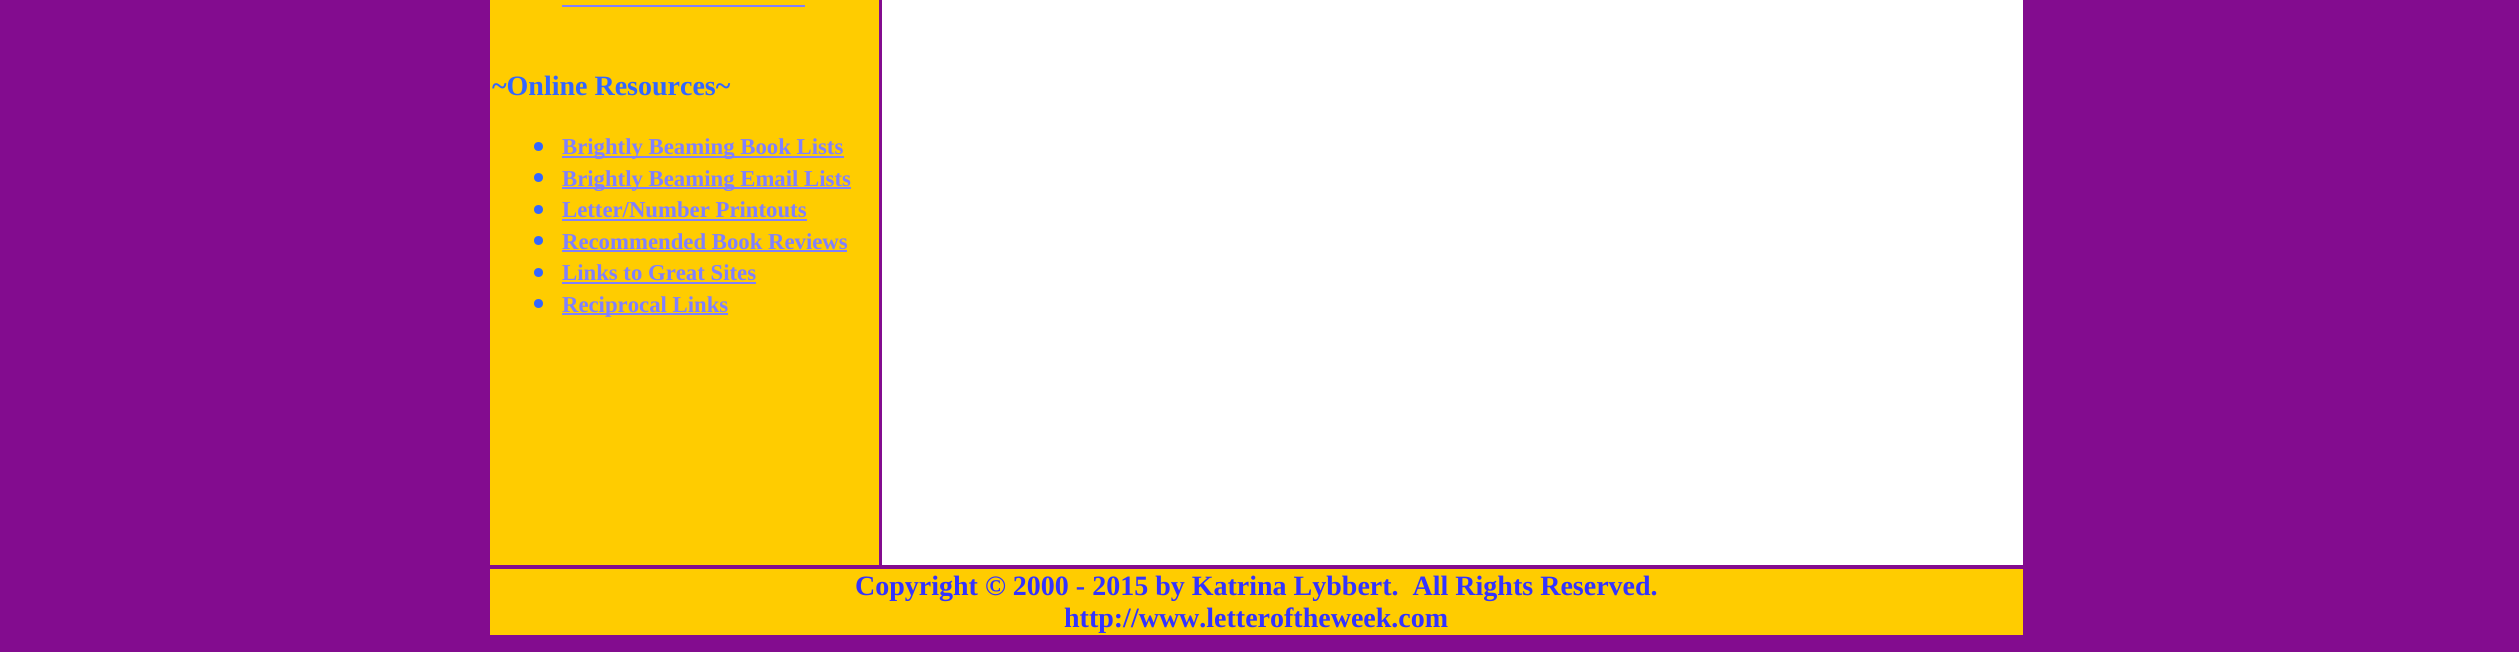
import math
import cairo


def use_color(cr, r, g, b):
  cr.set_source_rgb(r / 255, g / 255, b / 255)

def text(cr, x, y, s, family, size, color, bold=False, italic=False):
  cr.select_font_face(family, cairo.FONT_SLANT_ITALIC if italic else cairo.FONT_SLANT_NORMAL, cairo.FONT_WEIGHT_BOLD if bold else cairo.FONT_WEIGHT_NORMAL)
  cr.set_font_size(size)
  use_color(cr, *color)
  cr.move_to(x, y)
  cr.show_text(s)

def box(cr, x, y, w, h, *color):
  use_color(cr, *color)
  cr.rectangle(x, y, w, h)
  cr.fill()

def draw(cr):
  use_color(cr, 131, 12, 143)
  cr.paint()
  box(cr, 490, 0, 389, 565, 255, 204, 0)
  box(cr, 562, 5, 243, 2, 128, 128, 255)
  use_color(cr, 51, 102, 255)
  cr.arc(538.5, 146.5, 4.5, 0, 2 * math.pi)
  cr.fill()
  box(cr, 562, 156, 282, 2, 128, 128, 255)
  use_color(cr, 51, 102, 255)
  cr.arc(538.5, 177.5, 4.5, 0, 2 * math.pi)
  cr.fill()
  box(cr, 562, 187, 289, 2, 128, 128, 255)
  use_color(cr, 51, 102, 255)
  cr.arc(538.5, 209.5, 4.5, 0, 2 * math.pi)
  cr.fill()
  box(cr, 562, 219, 245, 2, 128, 128, 255)
  use_color(cr, 51, 102, 255)
  cr.arc(538.5, 240.5, 4.5, 0, 2 * math.pi)
  cr.fill()
  box(cr, 562, 250, 285, 2, 128, 128, 255)
  use_color(cr, 51, 102, 255)
  cr.arc(538.5, 272.5, 4.5, 0, 2 * math.pi)
  cr.fill()
  box(cr, 562, 282, 194, 2, 128, 128, 255)
  use_color(cr, 51, 102, 255)
  cr.arc(538.5, 303.5, 4.5, 0, 2 * math.pi)
  cr.fill()
  box(cr, 562, 313, 166, 2, 128, 128, 255)
  box(cr, 882, 0, 1141, 565, 255, 255, 255)
  box(cr, 490, 569, 1533, 66, 255, 204, 0)
  text(cr, 492, 95, "~Online Resources~", "Liberation Serif", 28, (51, 102, 255), bold=True)
  text(cr, 562, 154, "Brightly Beaming Book Lists", "Liberation Serif", 22.75, (128, 128, 255), bold=True)
  text(cr, 562, 186, "Brightly Beaming Email Lists", "Liberation Serif", 22.75, (128, 128, 255), bold=True)
  text(cr, 562, 217, "Letter/Number Printouts", "Liberation Serif", 22.75, (128, 128, 255), bold=True)
  text(cr, 562, 249, "Recommended Book Reviews", "Liberation Serif", 22.75, (128, 128, 255), bold=True)
  text(cr, 562, 280, "Links to Great Sites", "Liberation Serif", 22.75, (128, 128, 255), bold=True)
  text(cr, 562, 312, "Reciprocal Links", "Liberation Serif", 22.75, (128, 128, 255), bold=True)
  text(cr, 855, 595, "Copyright © 2000 - 2015 by Katrina Lybbert.  All Rights Reserved.", "Liberation Serif", 28, (51, 51, 255), bold=True)
  text(cr, 1064, 627, "http://www.letteroftheweek.com", "Liberation Serif", 28, (51, 51, 255), bold=True)


surface = cairo.ImageSurface(cairo.FORMAT_RGB24, 2519, 652)
cr = cairo.Context(surface)
options = cairo.FontOptions()
options.set_hint_metrics(cairo.HINT_METRICS_OFF)
options.set_hint_style(cairo.HINT_STYLE_NONE)
cr.set_font_options(options)
cr.set_miter_limit(4)
draw(cr)
surface.write_to_png("out.png")
